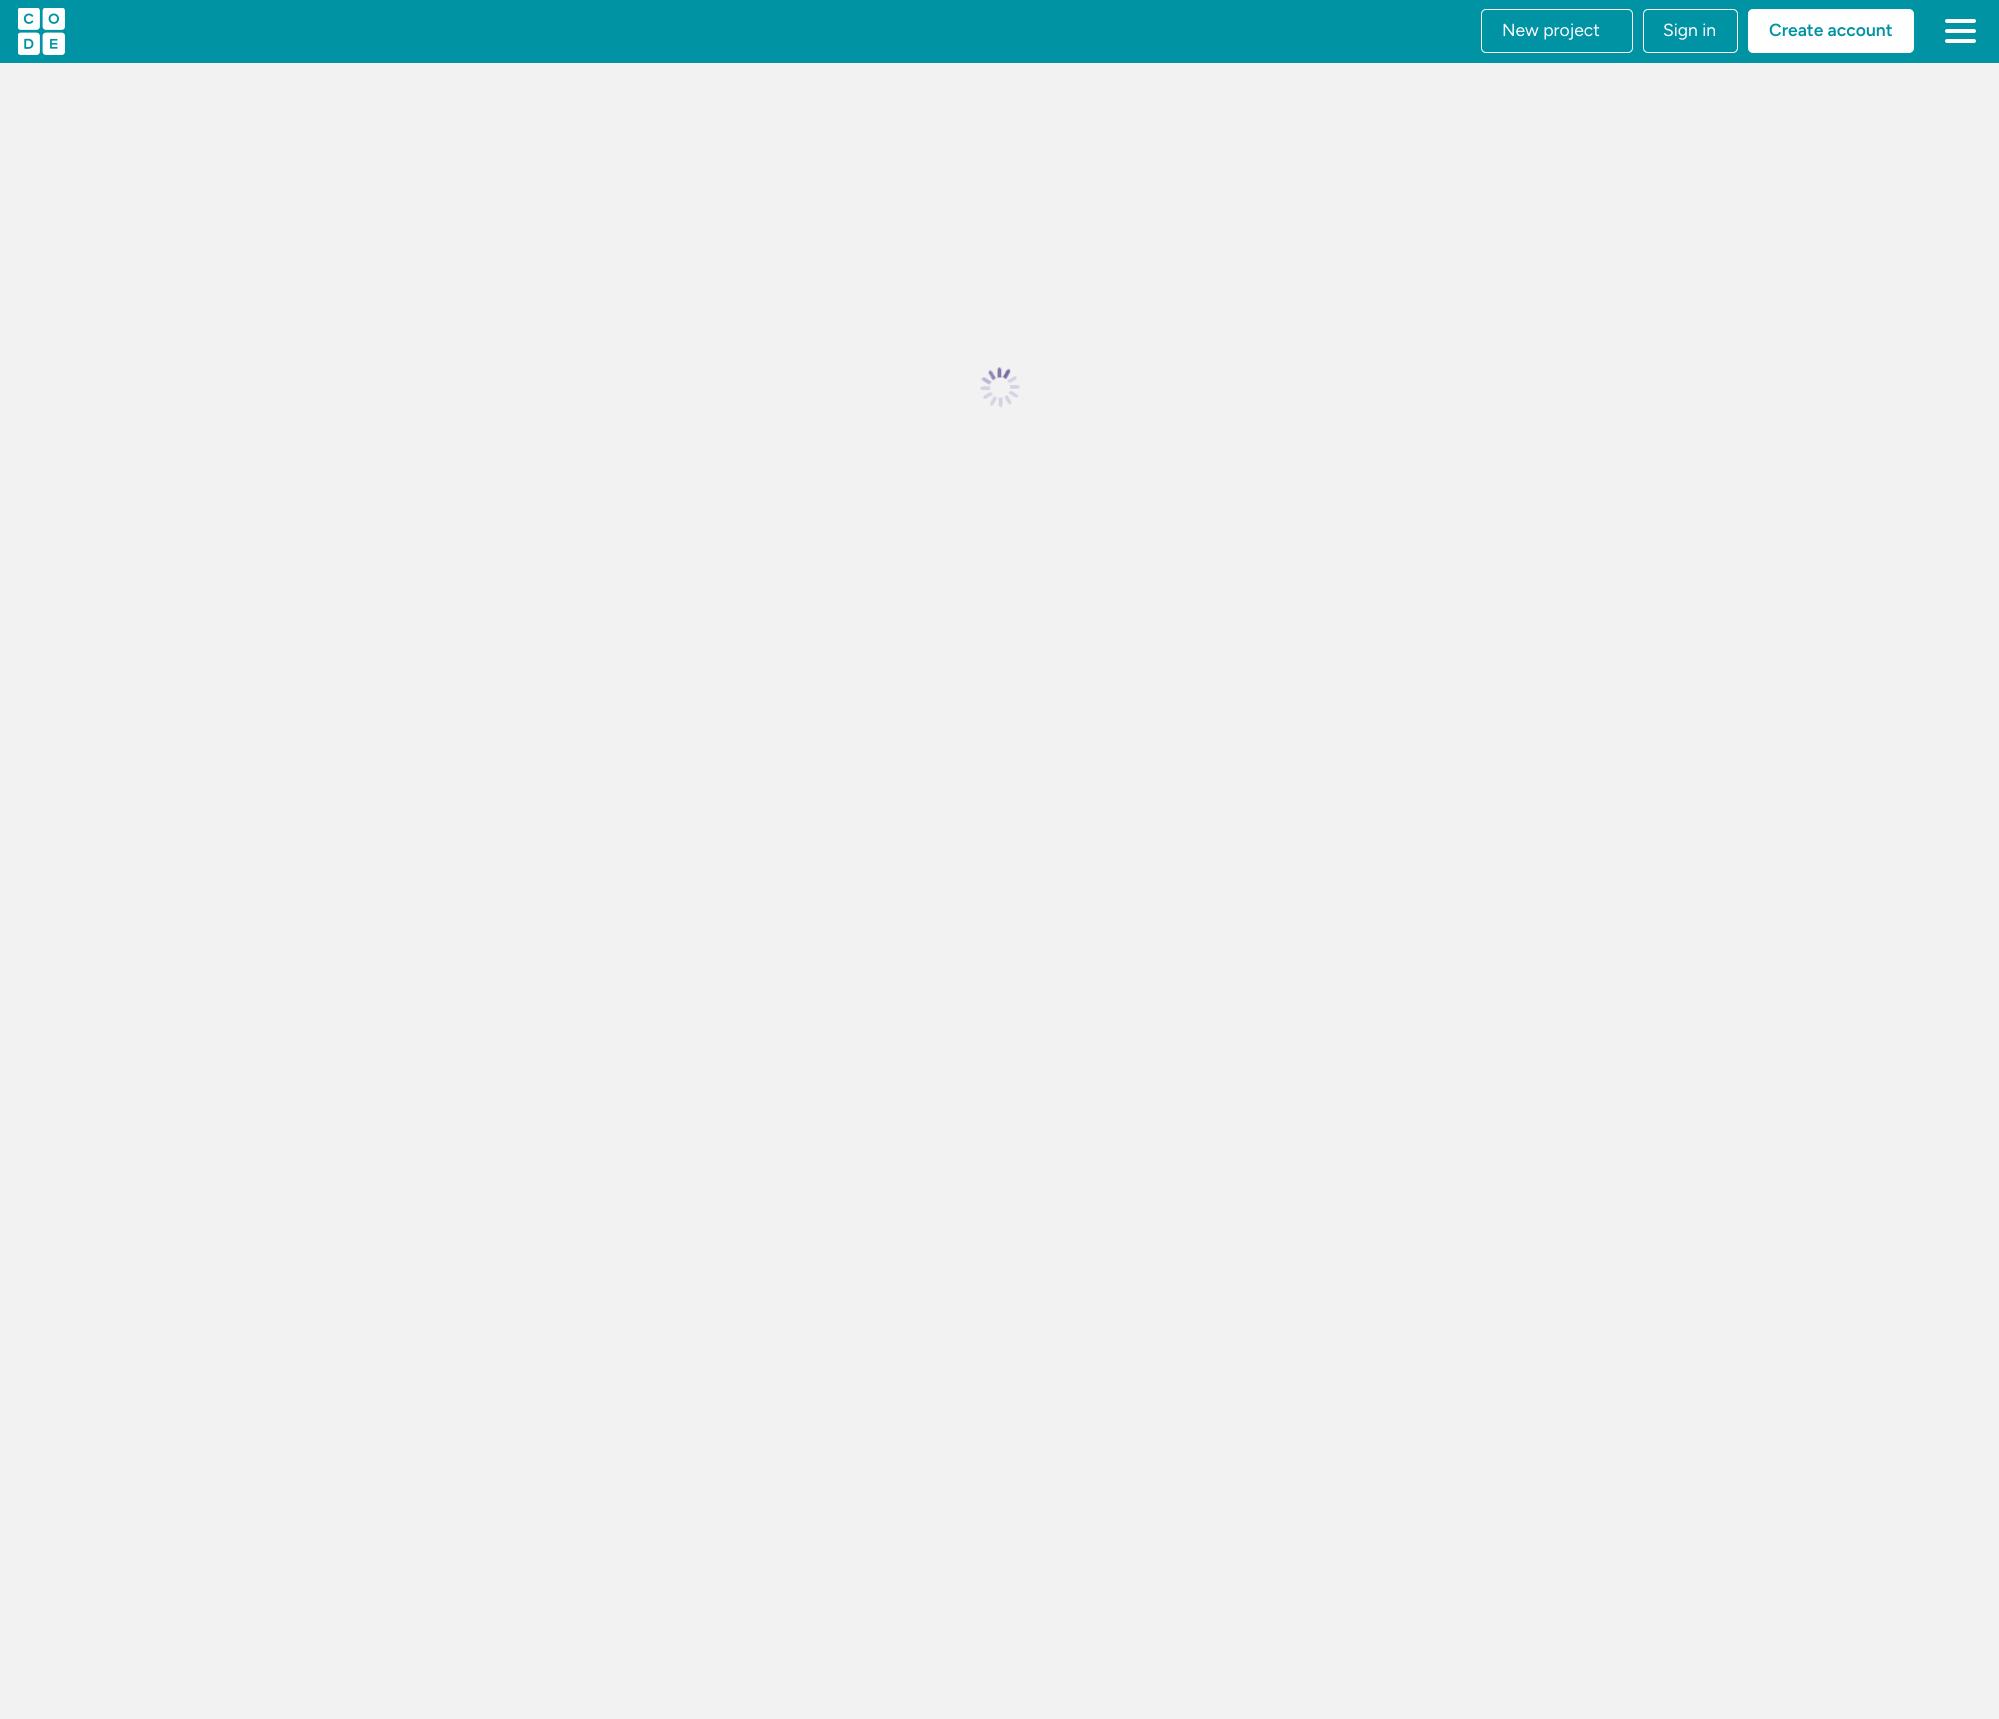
import math
import cairo


def use_color(cr, r, g, b):
  cr.set_source_rgb(r / 255, g / 255, b / 255)

def text(cr, x, y, s, family, size, color, bold=False, italic=False):
  cr.select_font_face(family, cairo.FONT_SLANT_ITALIC if italic else cairo.FONT_SLANT_NORMAL, cairo.FONT_WEIGHT_BOLD if bold else cairo.FONT_WEIGHT_NORMAL)
  cr.set_font_size(size)
  use_color(cr, *color)
  cr.move_to(x, y)
  cr.show_text(s)

def box(cr, x, y, w, h, *color):
  use_color(cr, *color)
  cr.rectangle(x, y, w, h)
  cr.fill()

def round_rect(cr, x, y, w, h, r):
  cr.new_sub_path()
  for i, (u, v) in enumerate([(x + w - r, y + h - r), (x + r, y + h - r), (x + r, y + r), (x + w - r, y + r)]):
    cr.arc(u, v, r, i * math.pi / 2, (i + 1) * math.pi / 2)
  cr.close_path()

def picture(cr, path, x, y, w, h):
  cr.save()
  cr.set_source_surface(cairo.ImageSurface.create_from_png(path), x, y)
  cr.rectangle(x, y, w, h)
  cr.fill()
  cr.restore()

def draw(cr):
  use_color(cr, 242, 242, 242)
  cr.paint()
  box(cr, 0, 0, 1999, 63, 0, 147, 164)
  picture(cr, "img_01.png", 18, 8, 47, 47)
  round_rect(cr, 1481.5, 9.5, 151, 43, 4.5)
  use_color(cr, 255, 255, 255)
  cr.set_line_width(1)
  cr.stroke()
  round_rect(cr, 1643.5, 9.5, 94, 43, 4.5)
  cr.stroke()
  round_rect(cr, 1748.5, 9.5, 165, 43, 4.5)
  cr.fill_preserve()
  cr.stroke()
  round_rect(cr, 1945, 29, 31, 4, 2)
  cr.fill()
  round_rect(cr, 1945, 19, 31, 4, 2)
  cr.fill()
  round_rect(cr, 1945, 39, 31, 4, 2)
  cr.fill()
  picture(cr, "img_02.png", 980, 367, 40, 41)
  text(cr, 1502, 36, "New project", "Figtree", 17.5, (255, 255, 255))
  text(cr, 1663, 36, "Sign in", "Figtree", 17.5, (255, 255, 255))
  text(cr, 1769, 36, "Create account", "Figtree SemiBold", 17.5, (0, 147, 164))


surface = cairo.ImageSurface(cairo.FORMAT_RGB24, 1999, 1719)
cr = cairo.Context(surface)
options = cairo.FontOptions()
options.set_hint_metrics(cairo.HINT_METRICS_OFF)
options.set_hint_style(cairo.HINT_STYLE_NONE)
cr.set_font_options(options)
cr.set_miter_limit(4)
draw(cr)
surface.write_to_png("out.png")
